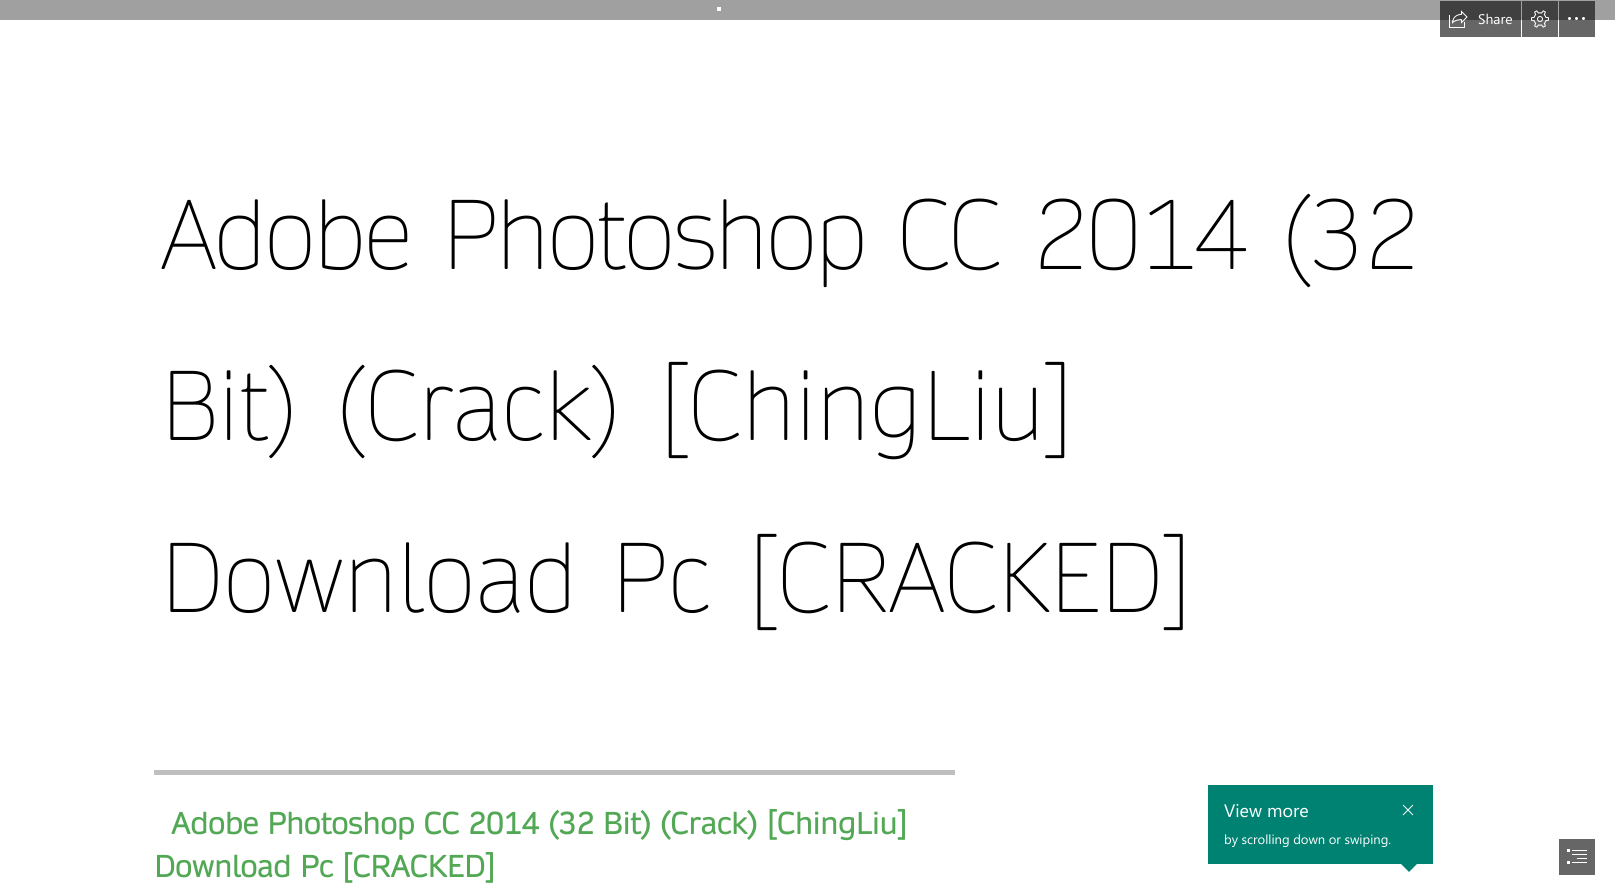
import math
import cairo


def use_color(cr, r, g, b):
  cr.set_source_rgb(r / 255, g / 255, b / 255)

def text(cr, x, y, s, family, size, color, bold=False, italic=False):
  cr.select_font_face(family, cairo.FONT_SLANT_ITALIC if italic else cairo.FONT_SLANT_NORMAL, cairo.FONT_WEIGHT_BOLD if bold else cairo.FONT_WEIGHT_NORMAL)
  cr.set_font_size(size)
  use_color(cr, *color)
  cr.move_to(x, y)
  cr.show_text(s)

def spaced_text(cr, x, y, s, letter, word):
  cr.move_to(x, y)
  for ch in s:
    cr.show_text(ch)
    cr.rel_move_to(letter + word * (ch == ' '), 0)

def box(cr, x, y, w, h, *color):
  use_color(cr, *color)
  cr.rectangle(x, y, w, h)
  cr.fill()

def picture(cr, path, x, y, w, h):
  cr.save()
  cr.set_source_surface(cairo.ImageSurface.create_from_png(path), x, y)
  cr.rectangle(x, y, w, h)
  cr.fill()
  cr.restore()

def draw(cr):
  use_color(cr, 255, 255, 255)
  cr.paint()
  box(cr, 0, 0, 1615, 20, 160, 160, 160)
  box(cr, 1440, 1, 81, 19, 64, 64, 64)
  box(cr, 1440, 20, 81, 17, 102, 102, 102)
  picture(cr, "img_01.png", 1449, 10, 19, 18)
  box(cr, 1522, 1, 36, 19, 64, 64, 64)
  box(cr, 1522, 20, 36, 17, 102, 102, 102)
  picture(cr, "img_02.png", 1531, 10, 18, 18)
  box(cr, 1559, 1, 36, 19, 64, 64, 64)
  picture(cr, "img_03.png", 1568, 17, 17, 3)
  box(cr, 717, 7, 4, 4, 255, 255, 255)
  box(cr, 1559, 20, 36, 17, 102, 102, 102)
  box(cr, 154, 770, 801, 5, 191, 191, 191)
  box(cr, 1208, 785, 225, 79, 0, 130, 114)
  picture(cr, "img_04.png", 1402, 804, 12, 12)
  cr.new_path()
  cr.move_to(1401, 864)
  cr.line_to(1417, 864)
  cr.line_to(1409, 872)
  cr.close_path()
  cr.fill()
  box(cr, 1559, 839, 36, 36, 102, 102, 102)
  picture(cr, "img_05.png", 1567, 849, 20, 15)
  text(cr, 1478, 24, "Share", "Segoe UI", 14, (255, 255, 255))
  cr.select_font_face("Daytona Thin")
  cr.set_font_size(94.6)
  use_color(cr, 0, 0, 0)
  spaced_text(cr, 161, 269, "Adobe Photoshop CC 2014 (32", -2.45, 0)
  spaced_text(cr, 161, 440, "Bit) (Crack) [ChingLiu]", -0.2, 0)
  text(cr, 161, 612, "Download Pc [CRACKED]", "Daytona Thin", 94.6, (0, 0, 0))
  cr.select_font_face("Daytona")
  cr.set_font_size(30.25)
  use_color(cr, 83, 168, 85)
  spaced_text(cr, 171, 834, "Adobe Photoshop CC 2014 (32 Bit) (Crack) [ChingLiu]", -0.87, 0)
  spaced_text(cr, 154, 877, "Download Pc [CRACKED]", -0.87, 0)
  text(cr, 1224, 817, "View more", "Segoe UI", 18, (255, 255, 255))
  text(cr, 1224, 844, "by scrolling down or swiping.", "Segoe UI", 13, (255, 255, 255))


surface = cairo.ImageSurface(cairo.FORMAT_RGB24, 1615, 896)
cr = cairo.Context(surface)
options = cairo.FontOptions()
options.set_hint_metrics(cairo.HINT_METRICS_OFF)
options.set_hint_style(cairo.HINT_STYLE_NONE)
cr.set_font_options(options)
cr.set_miter_limit(4)
draw(cr)
surface.write_to_png("out.png")
